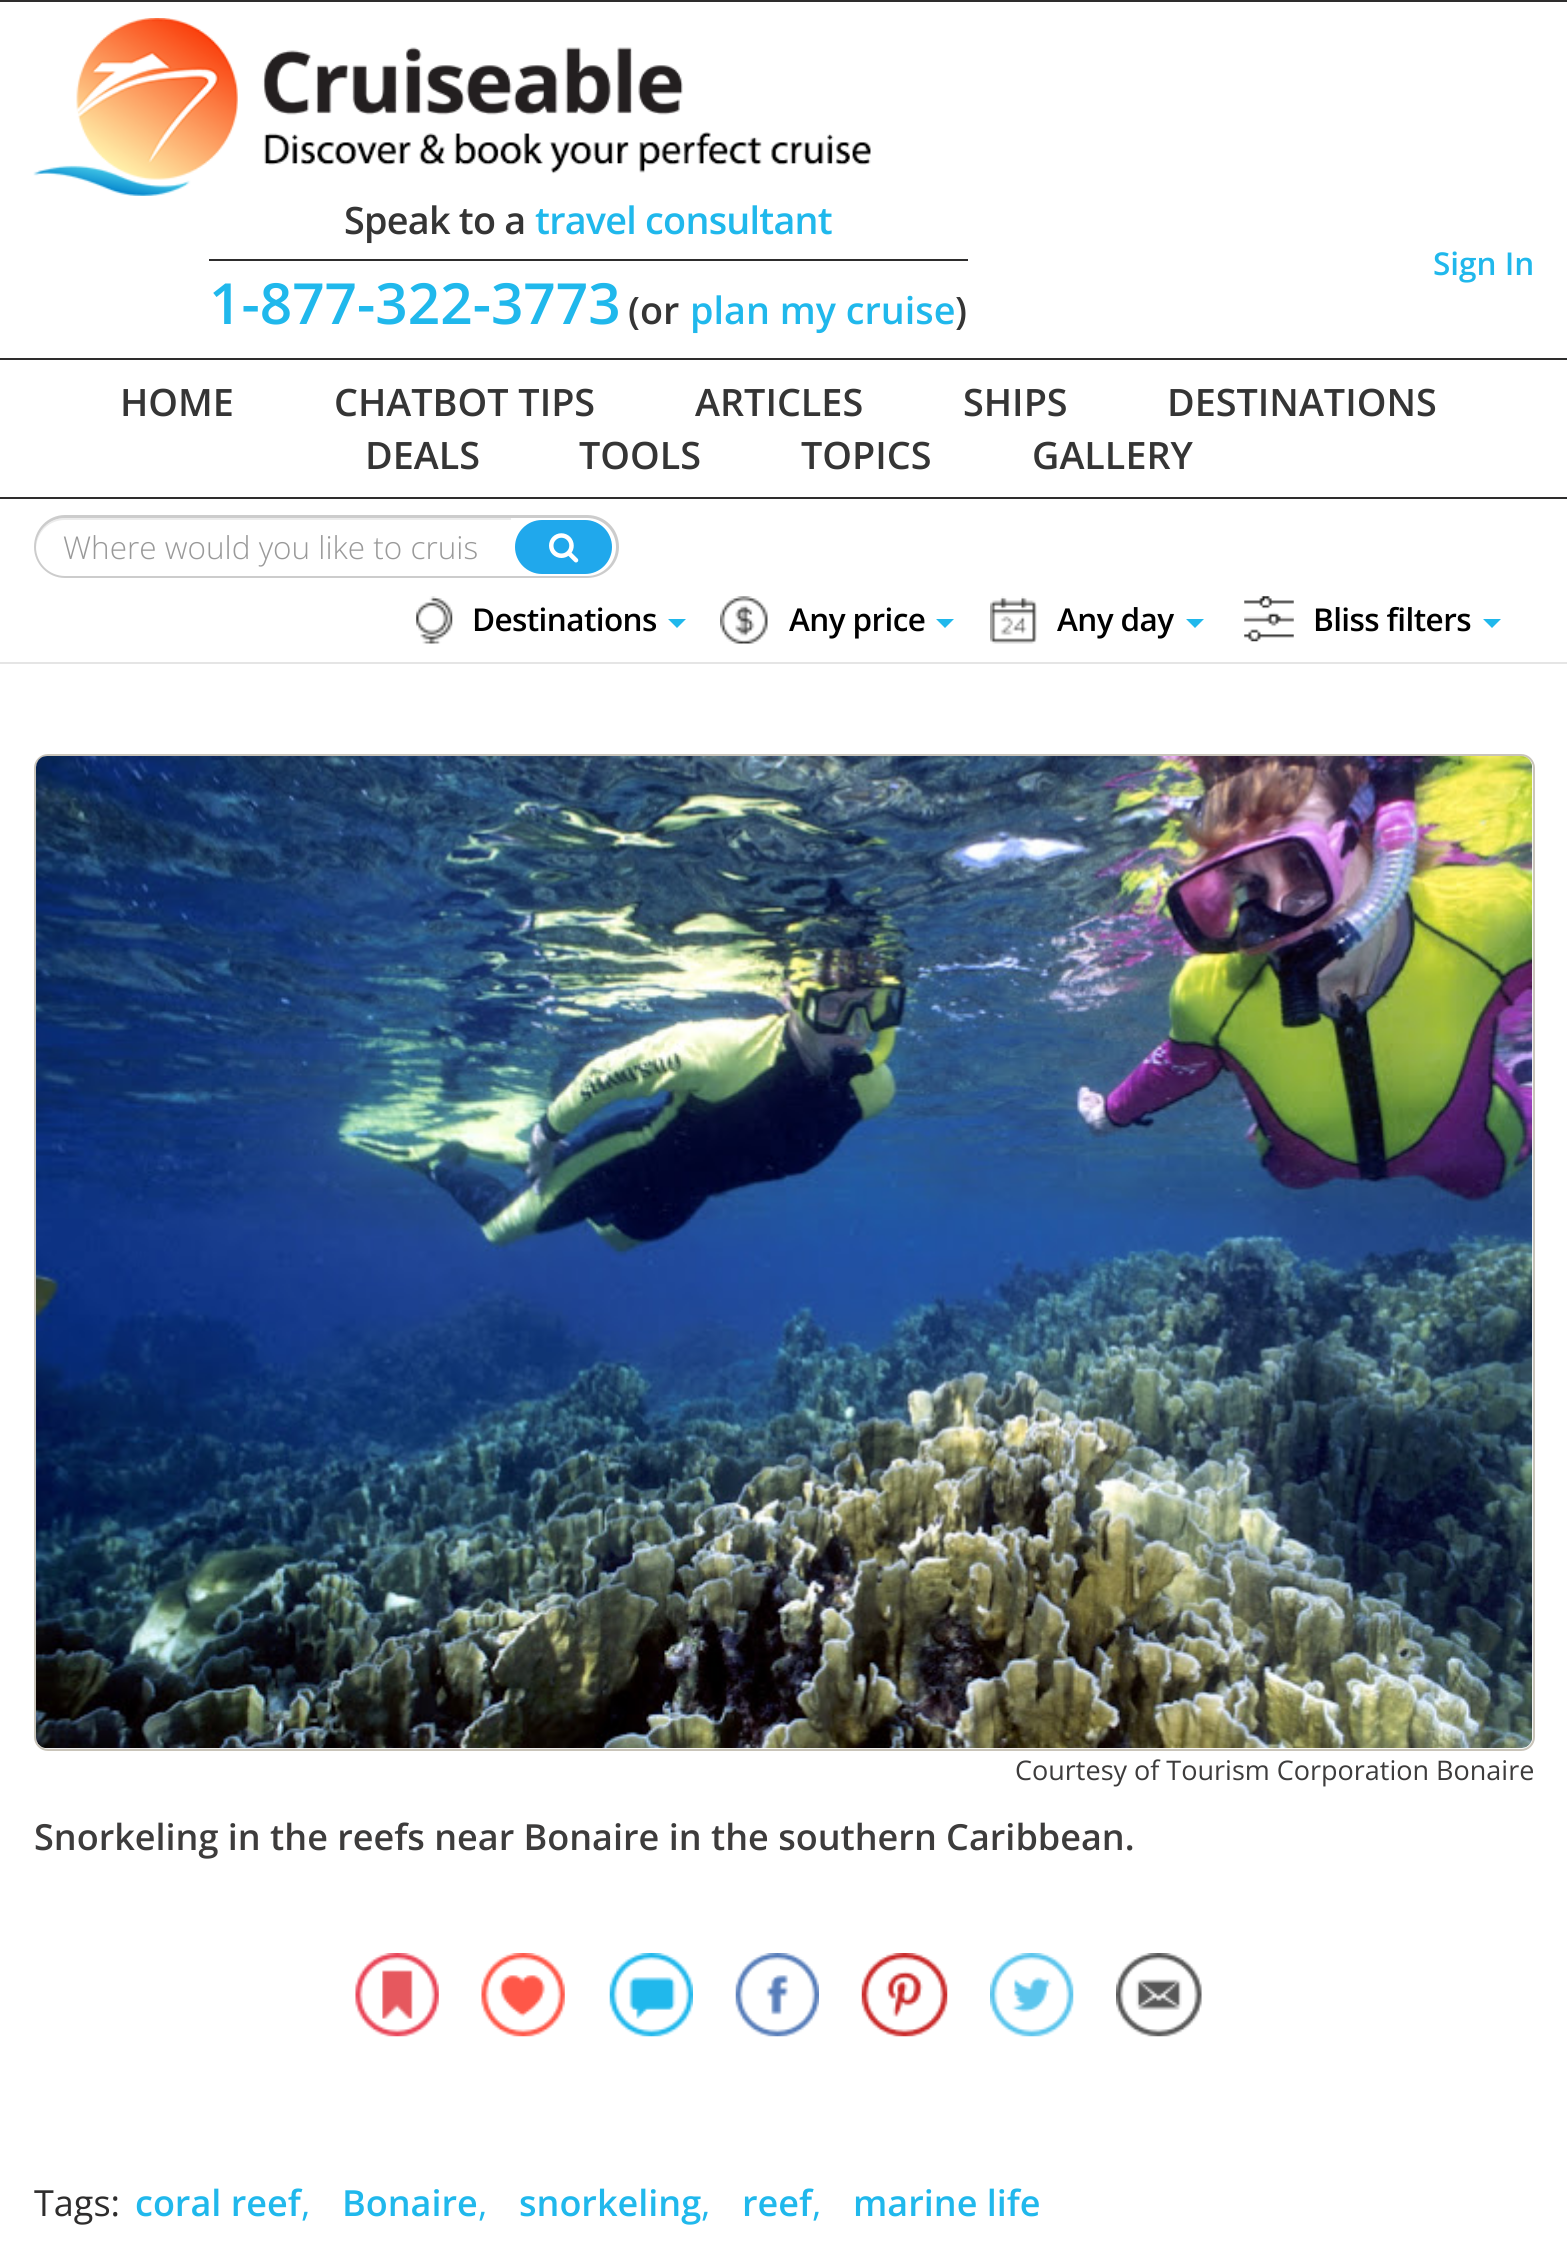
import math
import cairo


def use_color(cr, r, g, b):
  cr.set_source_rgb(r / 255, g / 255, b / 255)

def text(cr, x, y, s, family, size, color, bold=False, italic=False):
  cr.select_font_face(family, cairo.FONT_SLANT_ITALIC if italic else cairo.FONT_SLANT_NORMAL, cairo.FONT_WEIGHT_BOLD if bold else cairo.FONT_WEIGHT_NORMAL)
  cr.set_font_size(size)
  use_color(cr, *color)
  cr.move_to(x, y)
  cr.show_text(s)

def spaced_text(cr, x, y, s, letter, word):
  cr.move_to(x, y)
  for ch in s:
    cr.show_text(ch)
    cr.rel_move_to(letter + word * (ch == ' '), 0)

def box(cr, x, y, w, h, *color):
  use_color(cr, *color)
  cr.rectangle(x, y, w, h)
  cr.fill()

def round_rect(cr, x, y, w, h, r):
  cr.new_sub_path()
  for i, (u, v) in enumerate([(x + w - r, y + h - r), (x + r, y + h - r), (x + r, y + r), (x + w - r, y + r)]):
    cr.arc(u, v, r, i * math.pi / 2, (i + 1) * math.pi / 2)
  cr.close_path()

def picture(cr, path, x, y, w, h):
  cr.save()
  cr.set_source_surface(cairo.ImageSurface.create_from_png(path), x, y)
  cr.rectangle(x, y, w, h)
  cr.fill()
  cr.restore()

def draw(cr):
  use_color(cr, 255, 255, 255)
  cr.paint()
  box(cr, 0, 662, 1567, 2, 229, 229, 229)
  box(cr, 0, 0, 1567, 2, 46, 45, 45)
  picture(cr, "img_01.png", 33, 18, 838, 178)
  box(cr, 209, 259, 759, 2, 46, 45, 45)
  box(cr, 0, 358, 1567, 2, 46, 45, 45)
  box(cr, 0, 497, 1567, 2, 46, 45, 45)
  use_color(cr, 236, 236, 236)
  cr.new_path()
  cr.move_to(65, 520)
  cr.line_to(511, 520)
  cr.line_to(511, 518)
  cr.line_to(65, 518)
  cr.curve_to(49, 518, 35, 532, 36, 548)
  cr.curve_to(37, 532, 49, 520, 65, 520)
  cr.close_path()
  cr.fill()
  use_color(cr, 204, 204, 204)
  cr.set_fill_rule(cairo.FILL_RULE_EVEN_ODD)
  cr.new_path()
  cr.move_to(65, 515)
  cr.line_to(511, 515)
  cr.line_to(511, 578)
  cr.line_to(65, 578)
  cr.curve_to(48, 578, 34, 564, 34, 547)
  cr.curve_to(34, 529, 48, 515, 65, 515)
  cr.close_path()
  cr.move_to(65, 518)
  cr.line_to(511, 518)
  cr.line_to(511, 576)
  cr.line_to(65, 576)
  cr.curve_to(49, 576, 36, 563, 36, 547)
  cr.curve_to(36, 531, 49, 518, 65, 518)
  cr.close_path()
  cr.fill()
  cr.new_path()
  cr.move_to(511, 515)
  cr.line_to(587, 515)
  cr.curve_to(605, 515, 619, 529, 619, 547)
  cr.curve_to(619, 564, 605, 578, 587, 578)
  cr.line_to(511, 578)
  cr.close_path()
  cr.move_to(511, 518)
  cr.line_to(587, 518)
  cr.curve_to(603, 518, 616, 531, 616, 547)
  cr.curve_to(616, 563, 603, 576, 587, 576)
  cr.line_to(511, 576)
  cr.close_path()
  cr.fill()
  use_color(cr, 32, 168, 236)
  round_rect(cr, 516, 521, 95, 52, 26)
  cr.fill_preserve()
  cr.stroke()
  picture(cr, "img_02.png", 549, 533, 30, 30)
  picture(cr, "img_03.png", 416, 596, 37, 48)
  use_color(cr, 32, 184, 236)
  cr.set_fill_rule(cairo.FILL_RULE_WINDING)
  cr.new_path()
  cr.move_to(668, 619)
  cr.line_to(686, 619)
  cr.line_to(677, 628)
  cr.close_path()
  cr.fill()
  picture(cr, "img_04.png", 720, 596, 48, 48)
  cr.new_path()
  cr.move_to(936, 619)
  cr.line_to(954, 619)
  cr.line_to(945, 628)
  cr.close_path()
  cr.fill()
  picture(cr, "img_05.png", 990, 596, 47, 48)
  cr.new_path()
  cr.move_to(1186, 619)
  cr.line_to(1204, 619)
  cr.line_to(1195, 628)
  cr.close_path()
  cr.fill()
  picture(cr, "img_06.png", 1244, 596, 50, 46)
  cr.new_path()
  cr.move_to(1483, 619)
  cr.line_to(1501, 619)
  cr.line_to(1492, 628)
  cr.close_path()
  cr.fill()
  round_rect(cr, 35, 755, 1499, 995, 13)
  use_color(cr, 201, 196, 185)
  cr.stroke()
  picture(cr, "img_07.png", 36, 756, 1497, 993)
  picture(cr, "img_08.png", 355, 1953, 84, 84)
  picture(cr, "img_09.png", 481, 1953, 84, 84)
  picture(cr, "img_10.png", 609, 1953, 84, 84)
  picture(cr, "img_11.png", 735, 1953, 84, 84)
  picture(cr, "img_12.png", 861, 1953, 87, 84)
  picture(cr, "img_13.png", 990, 1953, 84, 84)
  picture(cr, "img_14.png", 1116, 1953, 86, 84)
  cr.select_font_face("Open Sans SemiBold")
  cr.set_font_size(37.75)
  use_color(cr, 53, 53, 53)
  spaced_text(cr, 344, 234, "Speak to a", -0.75, 0)
  use_color(cr, 32, 184, 236)
  spaced_text(cr, 535, 234, "travel consultant", -0.75, 0)
  text(cr, 209, 324, "1-877-322-3773", "Open Sans SemiBold", 56.75, (32, 184, 236))
  text(cr, 628, 324, "(or", "Open Sans SemiBold", 37.75, (53, 53, 53))
  text(cr, 690, 324, "plan my cruise", "Open Sans SemiBold", 37.75, (32, 184, 236))
  text(cr, 955, 324, ")", "Open Sans SemiBold", 37.75, (53, 53, 53))
  text(cr, 1433, 275, "Sign In", "Open Sans SemiBold", 31.5, (32, 184, 236))
  text(cr, 120, 416, "HOME", "Open Sans SemiBold", 37.75, (53, 53, 53))
  text(cr, 334, 416, "CHATBOT TIPS", "Open Sans SemiBold", 37.75, (53, 53, 53))
  text(cr, 695, 416, "ARTICLES", "Open Sans SemiBold", 37.75, (53, 53, 53))
  text(cr, 963, 416, "SHIPS", "Open Sans SemiBold", 37.75, (53, 53, 53))
  text(cr, 1167, 416, "DESTINATIONS", "Open Sans SemiBold", 37.75, (53, 53, 53))
  text(cr, 365, 469, "DEALS", "Open Sans SemiBold", 37.75, (53, 53, 53))
  text(cr, 579, 469, "TOOLS", "Open Sans SemiBold", 37.75, (53, 53, 53))
  text(cr, 801, 469, "TOPICS", "Open Sans SemiBold", 37.75, (53, 53, 53))
  text(cr, 1032, 469, "GALLERY", "Open Sans SemiBold", 37.75, (53, 53, 53))
  text(cr, 63, 559, "Where would you like to cruis", "Open Sans Light", 31.5, (153, 153, 153))
  cr.select_font_face("Open Sans SemiBold")
  use_color(cr, 0, 0, 0)
  spaced_text(cr, 472, 631, "Destinations", -0.6, 0)
  spaced_text(cr, 789, 631, "Any price", -0.6, 0)
  spaced_text(cr, 1057, 631, "Any day", -0.6, 0)
  spaced_text(cr, 1313, 631, "Bliss filters", -0.6, 0)
  text(cr, 1015, 1780, "Courtesy of Tourism Corporation Bonaire", "Open Sans", 27, (61, 60, 60))
  text(cr, 34, 1850, "Snorkeling in the reefs near Bonaire in the southern Caribbean.", "Open Sans SemiBold", 36, (61, 60, 60))
  text(cr, 34, 2216, "Tags:", "Open Sans", 36, (46, 45, 45))
  text(cr, 135, 2216, "coral reef", "Open Sans SemiBold", 36, (32, 184, 236))
  text(cr, 301, 2216, ",", "Open Sans", 36, (32, 184, 236))
  text(cr, 342, 2216, "Bonaire", "Open Sans SemiBold", 36, (32, 184, 236))
  text(cr, 478, 2216, ",", "Open Sans", 36, (32, 184, 236))
  text(cr, 519, 2216, "snorkeling", "Open Sans SemiBold", 36, (32, 184, 236))
  text(cr, 701, 2216, ",", "Open Sans", 36, (32, 184, 236))
  text(cr, 742, 2216, "reef", "Open Sans SemiBold", 36, (32, 184, 236))
  text(cr, 812, 2216, ",", "Open Sans", 36, (32, 184, 236))
  text(cr, 853, 2216, "marine life", "Open Sans SemiBold", 36, (32, 184, 236))


surface = cairo.ImageSurface(cairo.FORMAT_RGB24, 1567, 2262)
cr = cairo.Context(surface)
options = cairo.FontOptions()
options.set_hint_metrics(cairo.HINT_METRICS_OFF)
options.set_hint_style(cairo.HINT_STYLE_NONE)
cr.set_font_options(options)
cr.set_miter_limit(4)
draw(cr)
surface.write_to_png("out.png")
